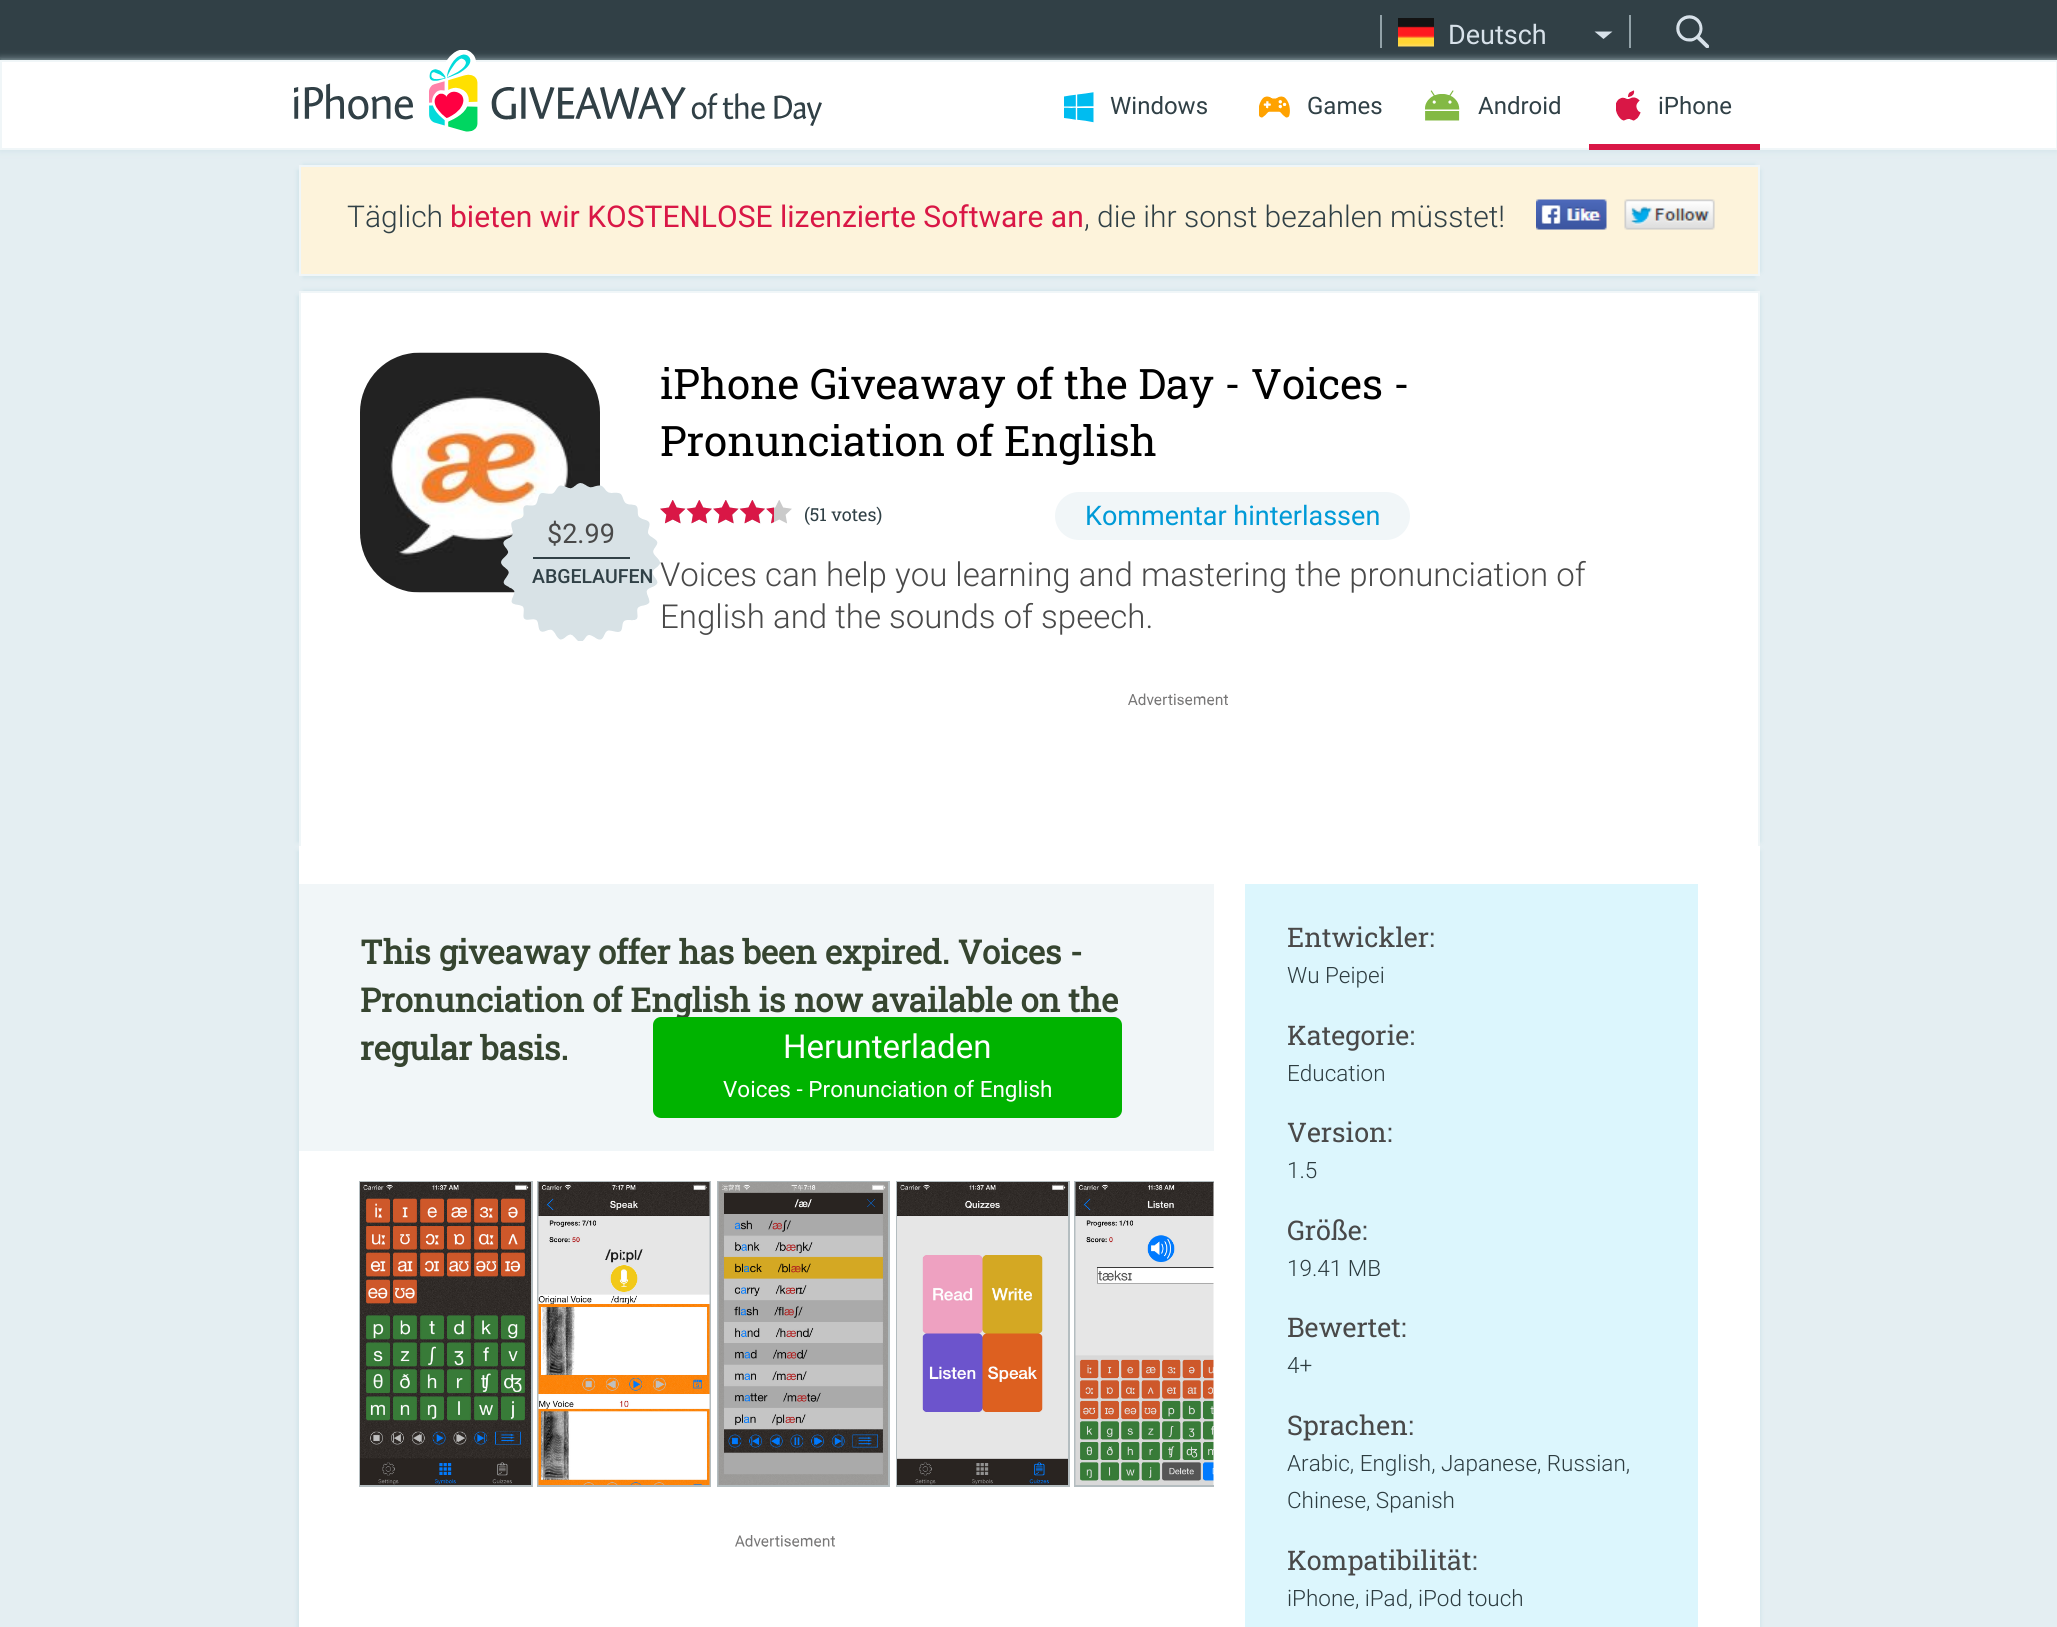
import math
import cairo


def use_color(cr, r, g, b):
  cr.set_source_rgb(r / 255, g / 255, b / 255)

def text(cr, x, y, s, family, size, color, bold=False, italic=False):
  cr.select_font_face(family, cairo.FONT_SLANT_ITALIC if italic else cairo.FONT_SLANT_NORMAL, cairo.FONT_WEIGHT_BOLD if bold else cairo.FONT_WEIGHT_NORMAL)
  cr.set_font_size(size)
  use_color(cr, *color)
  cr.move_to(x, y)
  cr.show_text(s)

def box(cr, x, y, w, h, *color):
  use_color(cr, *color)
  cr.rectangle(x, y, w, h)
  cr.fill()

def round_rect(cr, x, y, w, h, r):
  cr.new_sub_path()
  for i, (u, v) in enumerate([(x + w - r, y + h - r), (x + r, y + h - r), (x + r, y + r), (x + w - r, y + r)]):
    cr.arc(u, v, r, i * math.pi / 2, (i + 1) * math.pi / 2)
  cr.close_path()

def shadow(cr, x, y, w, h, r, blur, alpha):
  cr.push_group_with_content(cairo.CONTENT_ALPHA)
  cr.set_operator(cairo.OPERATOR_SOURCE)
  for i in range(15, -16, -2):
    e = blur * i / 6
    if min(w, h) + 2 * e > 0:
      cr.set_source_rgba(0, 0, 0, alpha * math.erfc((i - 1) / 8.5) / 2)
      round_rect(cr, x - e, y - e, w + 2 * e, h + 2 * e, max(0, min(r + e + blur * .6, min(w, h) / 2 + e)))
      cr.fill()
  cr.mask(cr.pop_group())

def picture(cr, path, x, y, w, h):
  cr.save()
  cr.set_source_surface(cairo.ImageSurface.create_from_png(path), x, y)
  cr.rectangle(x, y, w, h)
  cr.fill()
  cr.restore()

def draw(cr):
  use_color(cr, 228, 238, 242)
  cr.paint()
  box(cr, 0, 0, 2057, 60, 49, 64, 70)
  use_color(cr, 199, 222, 228)
  shadow(cr, 0, 60, 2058, 90, 0, 4, 0.8)
  box(cr, 1380, 15, 2, 33, 146, 162, 168)
  picture(cr, "img_01.png", 1398, 18, 36, 29)
  use_color(cr, 215, 225, 233)
  cr.new_path()
  cr.move_to(1594.5, 31.5)
  cr.line_to(1612.5, 31.5)
  cr.line_to(1603.5, 39)
  cr.close_path()
  cr.fill()
  box(cr, 1629, 15, 2, 33, 146, 162, 168)
  picture(cr, "img_02.png", 1676, 15, 33, 33)
  use_color(cr, 255, 255, 255)
  cr.rectangle(1, 61, 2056, 88)
  cr.fill_preserve()
  use_color(cr, 240, 246, 248)
  cr.stroke()
  picture(cr, "img_03.png", 294, 50, 528, 82)
  picture(cr, "img_04.png", 1064, 92, 30, 31)
  picture(cr, "img_05.png", 1259, 96, 31, 22)
  picture(cr, "img_06.png", 1425, 90, 35, 31)
  picture(cr, "img_07.png", 1616, 90, 25, 31)
  box(cr, 1589, 144, 171, 6, 217, 23, 70)
  use_color(cr, 199, 222, 228)
  shadow(cr, 297, 170, 1452, 102, 0, 2, 0.6)
  shadow(cr, 303, 176, 1452, 102, 0, 2, 0.6)
  shadow(cr, 309, 170, 1452, 102, 0, 2, 0.6)
  shadow(cr, 303, 164, 1452, 102, 0, 2, 0.6)
  use_color(cr, 253, 243, 219)
  cr.rectangle(300, 166, 1459, 109)
  cr.fill_preserve()
  use_color(cr, 240, 246, 248)
  cr.stroke()
  picture(cr, "img_08.png", 1536, 199, 71, 31)
  picture(cr, "img_09.png", 1624, 199, 91, 31)
  use_color(cr, 199, 222, 228)
  shadow(cr, 297, 851, 1452, 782, 0, 2, 0.6)
  shadow(cr, 309, 851, 1452, 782, 0, 2, 0.6)
  box(cr, 299, 846, 1461, 781, 255, 255, 255)
  use_color(cr, 199, 222, 228)
  shadow(cr, 297, 296, 1452, 546, 0, 2, 0.6)
  shadow(cr, 309, 296, 1452, 546, 0, 2, 0.6)
  shadow(cr, 303, 290, 1452, 546, 0, 2, 0.6)
  box(cr, 301, 293, 1457, 553, 255, 255, 255)
  box(cr, 299, 291, 1461, 2, 240, 246, 248)
  box(cr, 1758, 291, 2, 555, 240, 246, 248)
  box(cr, 299, 291, 2, 555, 240, 246, 248)
  picture(cr, "img_10.png", 360, 352, 240, 241)
  picture(cr, "img_11.png", 501, 483, 159, 158)
  box(cr, 533, 557, 97, 2, 49, 64, 70)
  picture(cr, "img_12.png", 660, 500, 132, 24)
  picture(cr, "img_13.png", 660, 500, 114, 24)
  use_color(cr, 241, 246, 248)
  round_rect(cr, 1055, 492, 355, 48, 24)
  cr.fill()
  picture(cr, "img_14.png", 1128, 693, 100, 13)
  box(cr, 299, 884, 915, 267, 241, 246, 248)
  cr.save()
  cr.rectangle(359, 1181, 855, 310)
  cr.clip()
  cr.rectangle(1075, 1182, 172, 304)
  use_color(cr, 180, 189, 192)
  cr.stroke()
  cr.restore()
  box(cr, 1245, 884, 453, 743, 220, 246, 253)
  cr.rectangle(360, 1182, 172, 304)
  use_color(cr, 180, 189, 192)
  cr.stroke()
  cr.rectangle(538, 1182, 172, 304)
  cr.stroke()
  cr.rectangle(718, 1182, 171, 304)
  cr.stroke()
  cr.rectangle(897, 1182, 172, 304)
  cr.stroke()
  picture(cr, "img_15.png", 360, 1182, 171, 303)
  picture(cr, "img_16.png", 538, 1182, 172, 303)
  picture(cr, "img_17.png", 718, 1182, 170, 303)
  picture(cr, "img_18.png", 897, 1182, 171, 303)
  picture(cr, "img_19.png", 1075, 1182, 139, 303)
  picture(cr, "img_20.png", 735, 1535, 100, 12)
  text(cr, 1448, 44, "Deutsch", "Roboto", 27, (215, 225, 233))
  text(cr, 1110, 114, "Windows", "Roboto", 24, (48, 64, 70))
  text(cr, 1307, 114, "Games", "Roboto", 24, (48, 64, 70))
  text(cr, 1478, 114, "Android", "Roboto", 24, (48, 64, 70))
  text(cr, 1658, 114, "iPhone", "Roboto", 24, (48, 64, 70))
  text(cr, 347, 227, "Täglich", "Roboto Light", 30, (48, 64, 70))
  text(cr, 450, 227, "bieten wir KOSTENLOSE lizenzierte Software an", "Roboto", 30, (217, 23, 70))
  text(cr, 1084, 227, ", die ihr sonst bezahlen müsstet!", "Roboto Light", 30, (48, 64, 70))
  text(cr, 547, 543, "$2.99", "Roboto", 27, (73, 73, 73))
  text(cr, 532, 583, "ABGELAUFEN", "Roboto Medium", 19.5, (48, 64, 70))
  text(cr, 660, 399, "iPhone Giveaway of the Day - Voices -", "Roboto Slab", 42, (0, 0, 0))
  text(cr, 660, 456, "Pronunciation of English", "Roboto Slab", 42, (0, 0, 0))
  text(cr, 804, 521, "(51 votes)", "Roboto Slab", 18, (48, 64, 70))
  text(cr, 1085, 525, "Kommentar hinterlassen", "Roboto", 27, (0, 154, 215))
  text(cr, 660, 586, "Voices can help you learning and mastering the pronunciation of", "Roboto Light", 33, (73, 73, 73))
  text(cr, 660, 628, "English and the sounds of speech.", "Roboto Light", 33, (73, 73, 73))
  text(cr, 360, 964, "This giveaway offer has been expired. Voices -", "Roboto Slab", 33, (54, 69, 48), bold=True)
  text(cr, 360, 1012, "Pronunciation of English is now available on the", "Roboto Slab", 33, (54, 69, 48), bold=True)
  text(cr, 360, 1060, "regular basis.", "Roboto Slab", 33, (54, 69, 48), bold=True)
  use_color(cr, 0, 179, 0)
  round_rect(cr, 653, 1017, 469, 101, 8)
  cr.fill()
  text(cr, 783, 1058, "Herunterladen", "Roboto", 33, (255, 255, 255))
  text(cr, 723, 1097, "Voices - Pronunciation of English", "Roboto", 22.5, (255, 255, 255))
  text(cr, 1287, 947, "Entwickler:", "Roboto Slab", 27, (73, 73, 73))
  text(cr, 1287, 983, "Wu Peipei", "Roboto Light", 22.5, (45, 60, 64))
  text(cr, 1287, 1045, "Kategorie:", "Roboto Slab", 27, (73, 73, 73))
  text(cr, 1287, 1081, "Education", "Roboto Light", 22.5, (45, 60, 64))
  text(cr, 1287, 1142, "Version:", "Roboto Slab", 27, (73, 73, 73))
  text(cr, 1287, 1178, "1.5", "Roboto Light", 22.5, (45, 60, 64))
  text(cr, 1287, 1240, "Größe:", "Roboto Slab", 27, (73, 73, 73))
  text(cr, 1287, 1276, "19.41 MB", "Roboto Light", 22.5, (45, 60, 64))
  text(cr, 1287, 1337, "Bewertet:", "Roboto Slab", 27, (73, 73, 73))
  text(cr, 1287, 1373, "4+", "Roboto Light", 22.5, (45, 60, 64))
  text(cr, 1287, 1435, "Sprachen:", "Roboto Slab", 27, (73, 73, 73))
  text(cr, 1287, 1471, "Arabic, English, Japanese, Russian,", "Roboto Light", 22.5, (45, 60, 64))
  text(cr, 1287, 1508, "Chinese, Spanish", "Roboto Light", 22.5, (45, 60, 64))
  text(cr, 1287, 1570, "Kompatibilität:", "Roboto Slab", 27, (73, 73, 73))
  text(cr, 1287, 1606, "iPhone, iPad, iPod touch", "Roboto Light", 22.5, (45, 60, 64))


surface = cairo.ImageSurface(cairo.FORMAT_RGB24, 2057, 1627)
cr = cairo.Context(surface)
options = cairo.FontOptions()
options.set_hint_metrics(cairo.HINT_METRICS_OFF)
options.set_hint_style(cairo.HINT_STYLE_NONE)
cr.set_font_options(options)
cr.set_miter_limit(4)
draw(cr)
surface.write_to_png("out.png")
